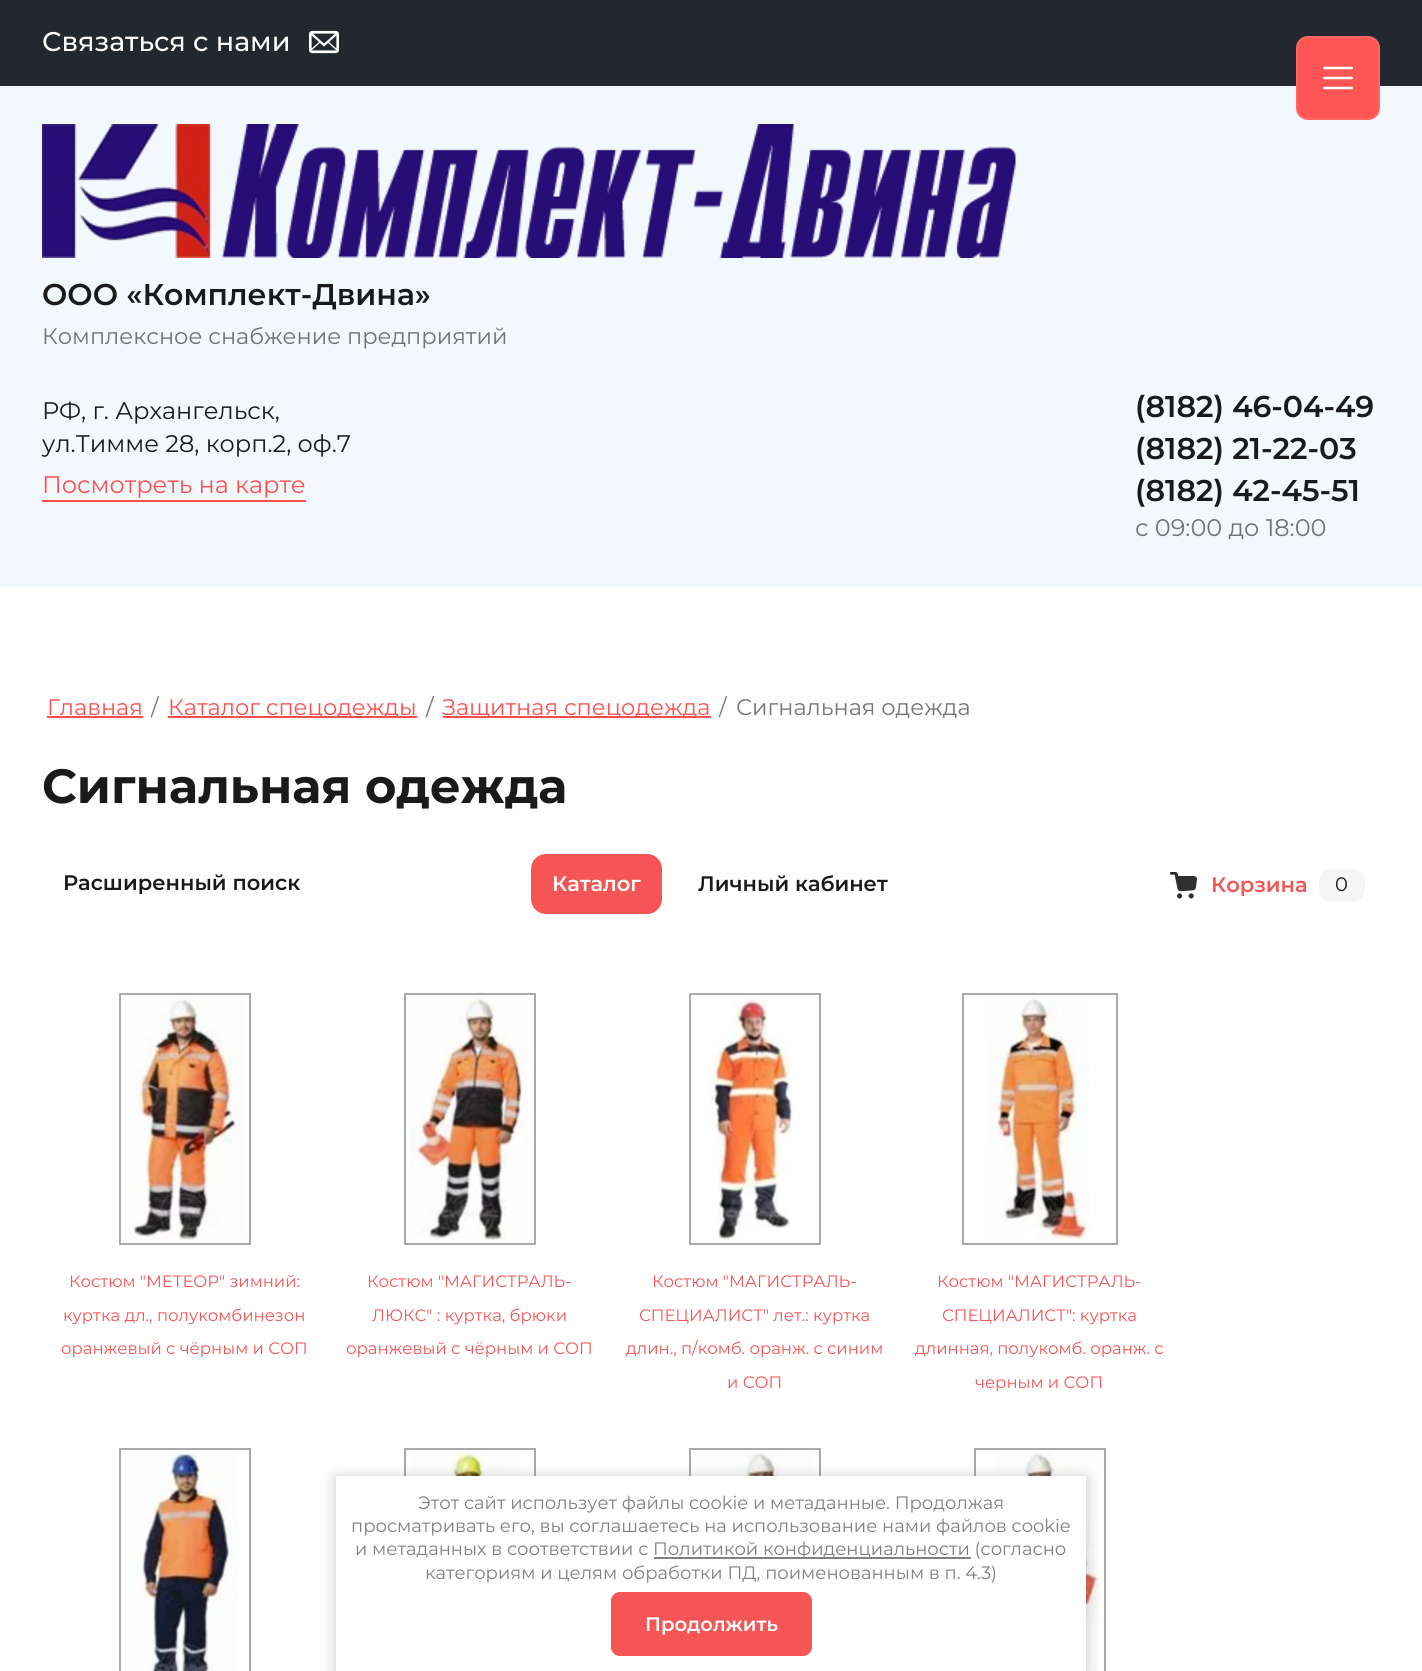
import math
import cairo


def use_color(cr, r, g, b):
  cr.set_source_rgb(r / 255, g / 255, b / 255)

def text(cr, x, y, s, family, size, color, bold=False, italic=False):
  cr.select_font_face(family, cairo.FONT_SLANT_ITALIC if italic else cairo.FONT_SLANT_NORMAL, cairo.FONT_WEIGHT_BOLD if bold else cairo.FONT_WEIGHT_NORMAL)
  cr.set_font_size(size)
  use_color(cr, *color)
  cr.move_to(x, y)
  cr.show_text(s)

def box(cr, x, y, w, h, *color):
  use_color(cr, *color)
  cr.rectangle(x, y, w, h)
  cr.fill()

def round_rect(cr, x, y, w, h, r):
  cr.new_sub_path()
  for i, (u, v) in enumerate([(x + w - r, y + h - r), (x + r, y + h - r), (x + r, y + r), (x + w - r, y + r)]):
    cr.arc(u, v, r, i * math.pi / 2, (i + 1) * math.pi / 2)
  cr.close_path()

def shadow(cr, x, y, w, h, r, blur, alpha):
  cr.push_group_with_content(cairo.CONTENT_ALPHA)
  cr.set_operator(cairo.OPERATOR_SOURCE)
  for i in range(15, -16, -2):
    e = blur * i / 6
    if min(w, h) + 2 * e > 0:
      cr.set_source_rgba(0, 0, 0, alpha * math.erfc((i - 1) / 8.5) / 2)
      round_rect(cr, x - e, y - e, w + 2 * e, h + 2 * e, max(0, min(r + e + blur * .6, min(w, h) / 2 + e)))
      cr.fill()
  cr.mask(cr.pop_group())

def picture(cr, path, x, y, w, h):
  cr.save()
  cr.set_source_surface(cairo.ImageSurface.create_from_png(path), x, y)
  cr.rectangle(x, y, w, h)
  cr.fill()
  cr.restore()

def draw(cr):
  use_color(cr, 242, 248, 251)
  cr.paint()
  box(cr, 0, 0, 1422, 86, 33, 40, 48)
  picture(cr, "img_01.png", 309, 30, 30, 24)
  use_color(cr, 255, 85, 85)
  round_rect(cr, 1296, 36, 84, 84, 12)
  cr.fill()
  round_rect(cr, 1297, 37, 82, 82, 11)
  cr.set_source_rgba(1, 1, 0.996, 0.1)
  cr.stroke()
  picture(cr, "img_02.png", 1323, 66, 30, 24)
  picture(cr, "img_03.png", 42, 124, 974, 134)
  box(cr, 42, 500, 264, 2, 255, 80, 80)
  box(cr, 0, 587, 1422, 1084, 255, 255, 255)
  box(cr, 47, 716, 96, 2, 255, 80, 80)
  box(cr, 168, 716, 249, 2, 255, 80, 80)
  box(cr, 443, 716, 268, 2, 255, 80, 80)
  use_color(cr, 245, 85, 85)
  round_rect(cr, 531, 854, 131, 60, 15)
  cr.fill()
  picture(cr, "img_04.png", 1169, 872, 28, 27)
  use_color(cr, 245, 245, 245)
  round_rect(cr, 1319, 869, 46, 33, 12)
  cr.fill()
  cr.rectangle(120, 994, 130, 250)
  use_color(cr, 170, 170, 170)
  cr.stroke()
  picture(cr, "img_05.png", 124, 998, 121, 242)
  cr.rectangle(405, 994, 130, 250)
  cr.stroke()
  picture(cr, "img_06.png", 409, 998, 121, 242)
  cr.rectangle(690, 994, 130, 250)
  cr.stroke()
  picture(cr, "img_07.png", 708, 998, 86, 242)
  cr.rectangle(963, 994, 154, 250)
  cr.stroke()
  picture(cr, "img_08.png", 990, 998, 99, 242)
  cr.rectangle(120, 1449, 130, 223)
  cr.stroke()
  picture(cr, "img_09.png", 125, 1453, 113, 218)
  cr.rectangle(405, 1449, 130, 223)
  cr.stroke()
  picture(cr, "img_10.png", 410, 1453, 111, 23)
  cr.rectangle(690, 1449, 130, 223)
  cr.stroke()
  picture(cr, "img_11.png", 694, 1453, 120, 23)
  cr.rectangle(975, 1449, 130, 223)
  cr.stroke()
  picture(cr, "img_12.png", 996, 1453, 104, 218)
  use_color(cr, 0, 0, 0)
  shadow(cr, 336, 1478, 750, 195, 0, 7.5, 0.23)
  box(cr, 336, 1476, 750, 195, 255, 255, 255)
  box(cr, 654, 1557, 317, 2, 128, 128, 128)
  use_color(cr, 245, 85, 85)
  round_rect(cr, 611, 1592, 201, 64, 9)
  cr.fill()
  text(cr, 42, 51, "Связаться с нами", "Montserrat Medium", 27, (255, 255, 255))
  text(cr, 42, 305, "ООО «Комплект-Двина»", "Montserrat SemiBold", 30, (26, 26, 26))
  text(cr, 42, 344, "Комплексное снабжение предприятий", "Montserrat", 22.5, (112, 115, 116))
  text(cr, 42, 419, "РФ, г. Архангельск,", "Montserrat", 24, (26, 26, 26))
  text(cr, 42, 452, "ул.Тимме 28, корп.2, оф.7", "Montserrat", 24, (26, 26, 26))
  text(cr, 42, 493, "Посмотреть на карте", "Montserrat", 24, (255, 80, 80))
  text(cr, 1135, 417, "(8182) 46-04-49", "Montserrat SemiBold", 30, (26, 26, 26))
  text(cr, 1135, 459, "(8182) 21-22-03", "Montserrat SemiBold", 30, (26, 26, 26))
  text(cr, 1135, 501, "(8182) 42-45-51", "Montserrat SemiBold", 30, (26, 26, 26))
  text(cr, 1135, 536, "с 09:00 до 18:00", "Montserrat", 24, (112, 115, 116))
  text(cr, 47, 715, "Главная", "Montserrat", 22.5, (255, 80, 80))
  text(cr, 151, 715, "/", "Montserrat", 22.5, (118, 118, 118))
  text(cr, 168, 715, "Каталог спецодежды", "Montserrat", 22.5, (255, 80, 80))
  text(cr, 426, 715, "/", "Montserrat", 22.5, (118, 118, 118))
  text(cr, 442, 715, "Защитная спецодежда", "Montserrat", 22.5, (255, 80, 80))
  text(cr, 719, 715, "/", "Montserrat", 22.5, (118, 118, 118))
  text(cr, 736, 715, "Сигнальная одежда", "Montserrat", 22.5, (118, 118, 118))
  text(cr, 42, 803, "Сигнальная одежда", "Montserrat", 48, (26, 26, 26), bold=True)
  text(cr, 63, 890, "Расширенный поиск", "Montserrat SemiBold", 21, (26, 26, 26))
  text(cr, 552, 891, "Каталог", "Montserrat SemiBold", 21, (255, 255, 255))
  text(cr, 698, 891, "Личный кабинет", "Montserrat SemiBold", 21, (26, 26, 26))
  text(cr, 1211, 892, "Корзина", "Montserrat SemiBold", 21, (245, 85, 85))
  text(cr, 1335, 891, "0", "Montserrat", 19.5, (26, 26, 26))
  text(cr, 69, 1287, "Костюм \"МЕТЕОР\" зимний:", "Montserrat", 16.5, (245, 85, 85))
  text(cr, 63, 1321, "куртка дл., полукомбинезон", "Montserrat", 16.5, (245, 85, 85))
  text(cr, 61, 1354, "оранжевый с чёрным и СОП", "Montserrat", 16.5, (245, 85, 85))
  text(cr, 367, 1287, "Костюм \"МАГИСТРАЛЬ-", "Montserrat", 16.5, (245, 85, 85))
  text(cr, 372, 1321, "ЛЮКС\" : куртка, брюки", "Montserrat", 16.5, (245, 85, 85))
  text(cr, 346, 1354, "оранжевый с чёрным и СОП", "Montserrat", 16.5, (245, 85, 85))
  text(cr, 652, 1287, "Костюм \"МАГИСТРАЛЬ-", "Montserrat", 16.5, (245, 85, 85))
  text(cr, 639, 1321, "СПЕЦИАЛИСТ\" лет.: куртка", "Montserrat", 16.5, (245, 85, 85))
  text(cr, 626, 1354, "длин., п/комб. оранж. с синим", "Montserrat", 16.5, (245, 85, 85))
  text(cr, 727, 1388, "и СОП", "Montserrat", 16.5, (245, 85, 85))
  text(cr, 937, 1287, "Костюм \"МАГИСТРАЛЬ-", "Montserrat", 16.5, (245, 85, 85))
  text(cr, 942, 1321, "СПЕЦИАЛИСТ\": куртка", "Montserrat", 16.5, (245, 85, 85))
  text(cr, 915, 1354, "длинная, полукомб. оранж. с", "Montserrat", 16.5, (245, 85, 85))
  text(cr, 975, 1388, "черным и СОП", "Montserrat", 16.5, (245, 85, 85))
  text(cr, 418, 1509, "Этот сайт использует файлы cookie и метаданные. Продолжая", "Montserrat", 18, (128, 128, 128))
  text(cr, 351, 1532, "просматривать его, вы соглашаетесь на использование нами файлов cookie", "Montserrat", 18, (128, 128, 128))
  text(cr, 355, 1555, "и метаданных в соответствии с", "Montserrat", 18, (128, 128, 128))
  text(cr, 653, 1555, "Политикой конфиденциальности (согласно", "Montserrat", 18, (128, 128, 128))
  text(cr, 425, 1579, "категориям и целям обработки ПД, поименованным в п. 4.3)", "Montserrat", 18, (128, 128, 128))
  text(cr, 645, 1631, "Продолжить", "Montserrat SemiBold", 19.5, (255, 255, 255))


surface = cairo.ImageSurface(cairo.FORMAT_RGB24, 1422, 1671)
cr = cairo.Context(surface)
options = cairo.FontOptions()
options.set_hint_metrics(cairo.HINT_METRICS_OFF)
options.set_hint_style(cairo.HINT_STYLE_NONE)
cr.set_font_options(options)
cr.set_miter_limit(4)
draw(cr)
surface.write_to_png("out.png")
